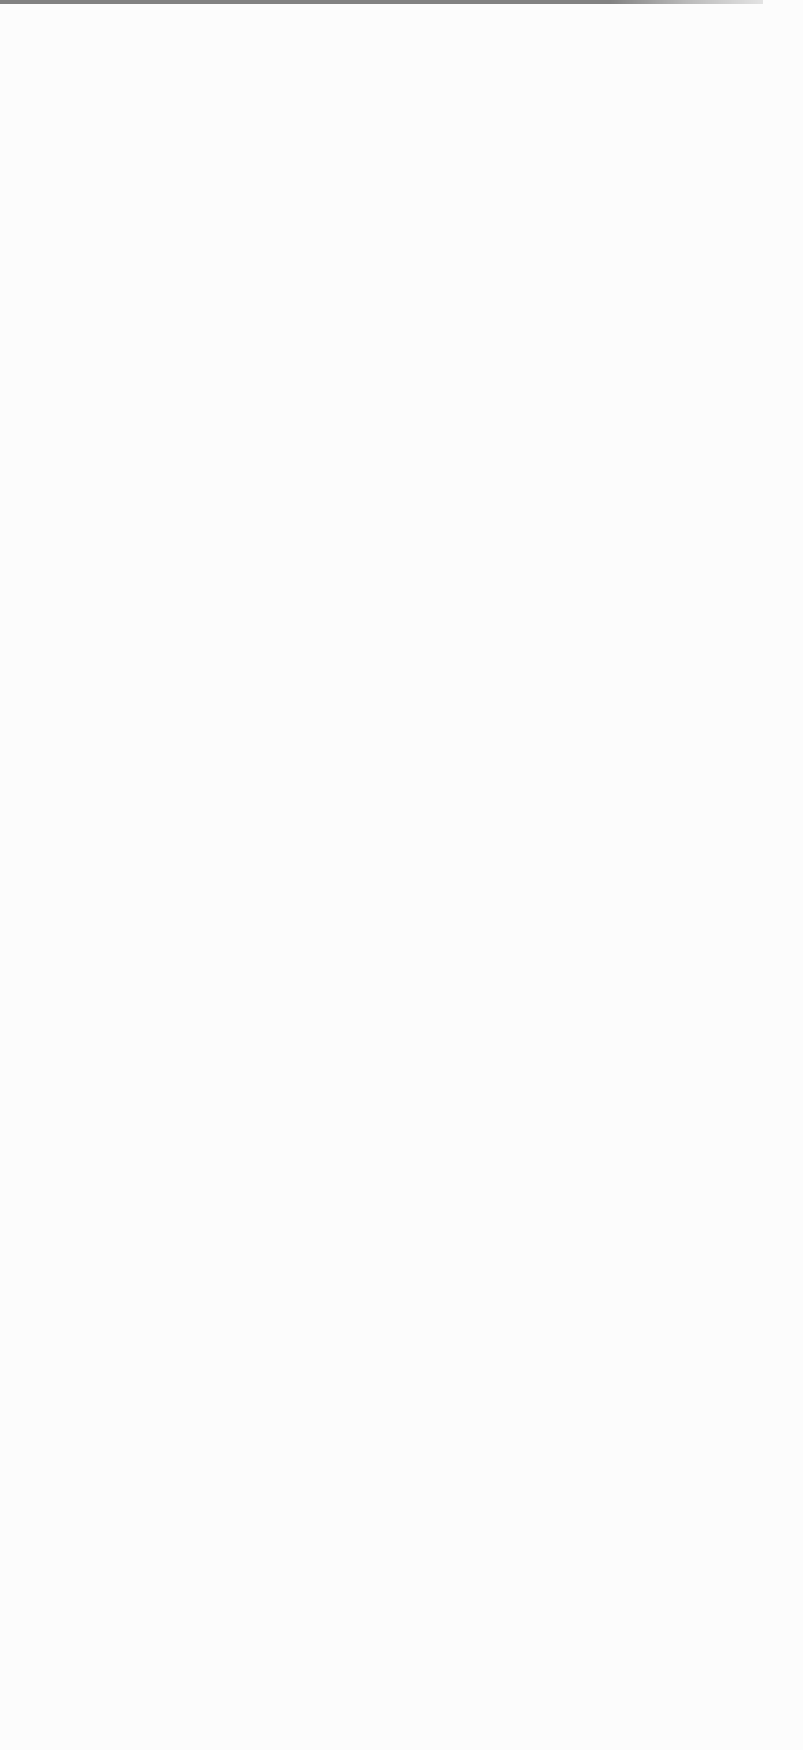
import math
import cairo


def use_color(cr, r, g, b):
  cr.set_source_rgb(r / 255, g / 255, b / 255)

def draw(cr):
  use_color(cr, 252, 252, 252)
  cr.paint()
  gradient = cairo.LinearGradient(0, 2, 763, 2)
  gradient.add_color_stop_rgba(0.8, 0.51, 0.51, 0.51, 1)
  gradient.add_color_stop_rgba(0.9, 0.729, 0.729, 0.729, 1)
  gradient.add_color_stop_rgba(1, 0.89, 0.89, 0.89, 1)
  cr.set_source(gradient)
  cr.rectangle(0, 0, 763, 4)
  cr.fill()


surface = cairo.ImageSurface(cairo.FORMAT_RGB24, 803, 1750)
cr = cairo.Context(surface)
options = cairo.FontOptions()
options.set_hint_metrics(cairo.HINT_METRICS_OFF)
options.set_hint_style(cairo.HINT_STYLE_NONE)
cr.set_font_options(options)
cr.set_miter_limit(4)
draw(cr)
surface.write_to_png("out.png")
